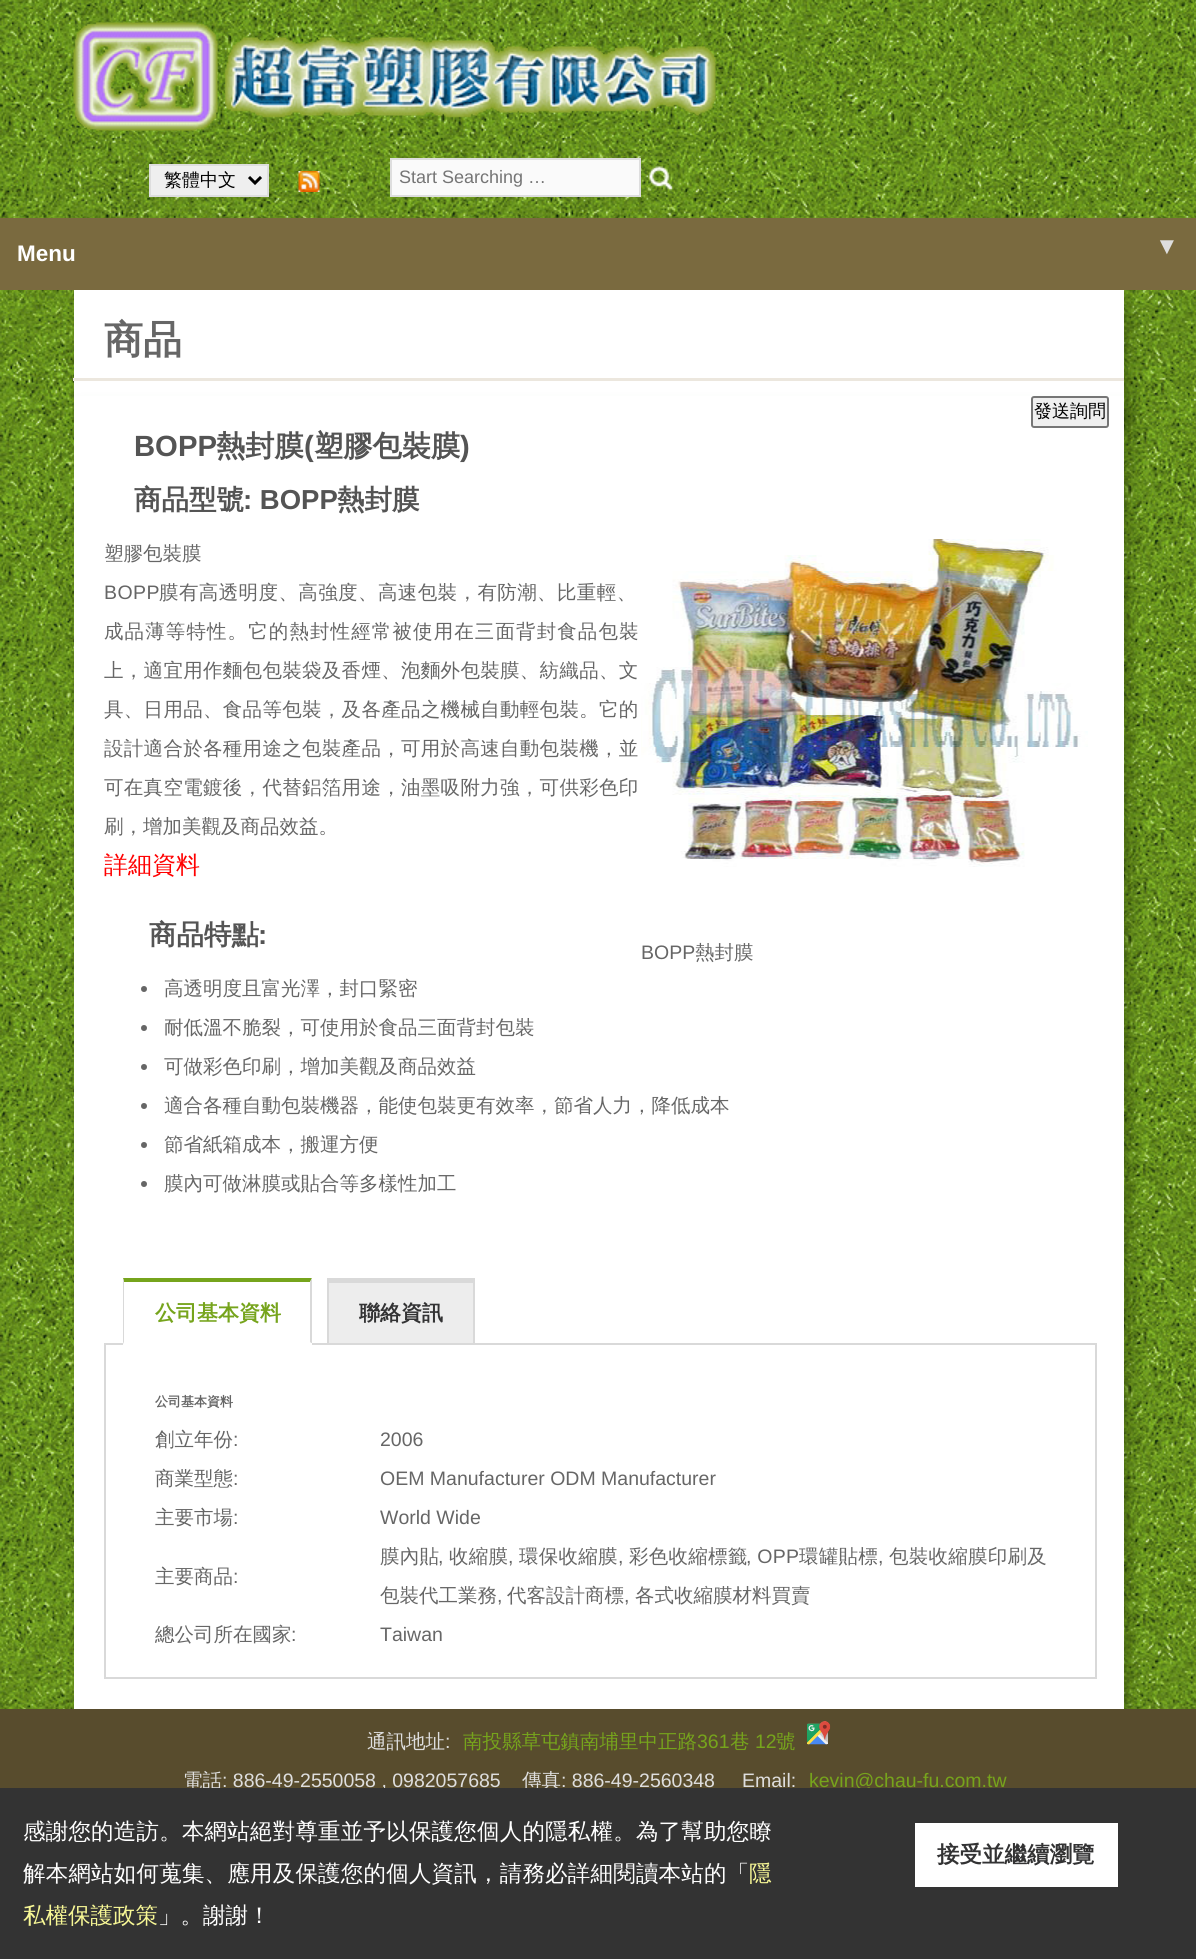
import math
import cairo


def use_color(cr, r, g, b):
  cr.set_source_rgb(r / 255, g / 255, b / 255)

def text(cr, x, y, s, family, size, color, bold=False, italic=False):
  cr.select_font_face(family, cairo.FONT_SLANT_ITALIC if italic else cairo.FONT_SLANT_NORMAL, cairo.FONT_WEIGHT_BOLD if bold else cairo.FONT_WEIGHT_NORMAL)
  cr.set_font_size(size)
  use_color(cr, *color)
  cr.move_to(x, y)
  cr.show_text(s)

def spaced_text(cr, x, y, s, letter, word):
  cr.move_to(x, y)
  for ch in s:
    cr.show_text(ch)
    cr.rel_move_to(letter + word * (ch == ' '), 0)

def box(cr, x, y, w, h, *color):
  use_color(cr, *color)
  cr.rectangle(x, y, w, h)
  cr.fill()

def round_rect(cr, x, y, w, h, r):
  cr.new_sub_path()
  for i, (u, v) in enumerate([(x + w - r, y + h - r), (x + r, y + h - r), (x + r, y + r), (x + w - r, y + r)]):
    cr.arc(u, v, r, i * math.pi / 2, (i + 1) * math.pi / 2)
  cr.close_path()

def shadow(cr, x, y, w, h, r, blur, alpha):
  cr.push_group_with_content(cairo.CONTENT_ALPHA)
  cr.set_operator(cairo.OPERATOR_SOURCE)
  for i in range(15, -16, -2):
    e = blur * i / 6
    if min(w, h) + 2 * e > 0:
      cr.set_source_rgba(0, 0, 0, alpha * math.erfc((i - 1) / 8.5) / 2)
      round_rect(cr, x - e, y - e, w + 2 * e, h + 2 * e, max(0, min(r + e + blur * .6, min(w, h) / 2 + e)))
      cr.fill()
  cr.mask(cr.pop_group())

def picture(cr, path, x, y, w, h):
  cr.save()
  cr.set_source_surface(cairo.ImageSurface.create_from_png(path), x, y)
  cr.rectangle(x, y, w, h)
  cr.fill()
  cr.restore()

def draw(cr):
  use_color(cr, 255, 255, 255)
  cr.paint()
  picture(cr, "img_01.png", 0, 0, 1196, 1709)
  picture(cr, "img_02.png", 73, 22, 643, 109)
  use_color(cr, 239, 239, 239)
  cr.rectangle(150, 165, 118, 31)
  cr.fill_preserve()
  use_color(cr, 222, 222, 222)
  cr.stroke()
  cr.new_path()
  cr.move_to(249, 177)
  cr.line_to(255, 183)
  cr.line_to(261, 177)
  use_color(cr, 0, 0, 0)
  cr.set_line_width(3)
  cr.stroke()
  picture(cr, "img_03.png", 298, 171, 22, 21)
  use_color(cr, 250, 250, 250)
  cr.rectangle(391, 159, 249, 37)
  cr.fill_preserve()
  use_color(cr, 222, 222, 222)
  cr.set_line_width(2)
  cr.stroke()
  picture(cr, "img_04.png", 649, 166, 24, 25)
  use_color(cr, 43, 64, 5)
  shadow(cr, 80, 305, 1050, 121, 0, 7.5, 0.5)
  box(cr, 0, 218, 1196, 72, 122, 106, 63)
  box(cr, 74, 290, 1050, 106, 255, 255, 255)
  box(cr, 73, 378, 1051, 3, 236, 231, 222)
  use_color(cr, 43, 64, 5)
  shadow(cr, 80, 411, 1050, 1313, 0, 7.5, 0.5)
  box(cr, 74, 396, 1050, 1313, 255, 255, 255)
  use_color(cr, 239, 239, 239)
  round_rect(cr, 1032, 397, 76, 30, 2)
  cr.fill_preserve()
  use_color(cr, 118, 118, 118)
  cr.stroke()
  use_color(cr, 102, 102, 102)
  cr.arc(144, 989, 3, 0, 2 * math.pi)
  cr.fill()
  cr.arc(144, 1028, 3, 0, 2 * math.pi)
  cr.fill()
  cr.arc(144, 1067, 3, 0, 2 * math.pi)
  cr.fill()
  cr.arc(144, 1106, 3, 0, 2 * math.pi)
  cr.fill()
  cr.arc(144, 1145, 3, 0, 2 * math.pi)
  cr.fill()
  cr.arc(144, 1184, 3, 0, 2 * math.pi)
  cr.fill()
  picture(cr, "img_05.png", 641, 539, 447, 328)
  use_color(cr, 118, 164, 28)
  cr.new_path()
  cr.move_to(123, 1278)
  cr.line_to(312, 1278)
  cr.line_to(310, 1282)
  cr.line_to(124, 1282)
  cr.close_path()
  cr.fill()
  cr.rectangle(105, 1344, 991, 334)
  use_color(cr, 217, 217, 217)
  cr.stroke()
  cr.new_path()
  cr.move_to(312, 1278)
  cr.line_to(312, 1344)
  cr.line_to(310, 1342)
  cr.line_to(310, 1282)
  cr.close_path()
  cr.fill()
  box(cr, 123, 1343, 189, 2, 255, 255, 255)
  use_color(cr, 217, 217, 217)
  cr.new_path()
  cr.move_to(123, 1344)
  cr.line_to(123, 1278)
  cr.line_to(124, 1282)
  cr.line_to(124, 1342)
  cr.close_path()
  cr.fill()
  box(cr, 329, 1283, 144, 60, 237, 237, 237)
  box(cr, 327, 1278, 147, 5, 217, 217, 217)
  box(cr, 473, 1278, 2, 66, 217, 217, 217)
  box(cr, 327, 1278, 2, 66, 217, 217, 217)
  box(cr, 0, 1709, 1196, 79, 88, 76, 45)
  picture(cr, "img_06.png", 807, 1721, 24, 24)
  text(cr, 164, 186, "繁體中文", "WenQuanYi Zen Hei Medium", 18, (0, 0, 0))
  text(cr, 399, 183, "Start Searching …", "Liberation Sans", 18, (117, 117, 117))
  text(cr, 17, 261, "Menu", "Liberation Sans", 22.5, (255, 255, 255), bold=True)
  text(cr, 1155, 254, "▼", "Liberation Sans", 24, (222, 222, 222), bold=True)
  text(cr, 104, 353, "商品", "WenQuanYi Zen Hei", 39, (102, 102, 102), bold=True)
  text(cr, 1034, 417, "發送詢問", "WenQuanYi Zen Hei Medium", 18, (0, 0, 0))
  text(cr, 134, 456, "BOPP", "Liberation Sans", 29.25, (84, 84, 84), bold=True)
  text(cr, 216, 456, "熱封膜", "WenQuanYi Zen Hei", 29.25, (84, 84, 84), bold=True)
  text(cr, 304, 456, "(", "Liberation Sans", 29.25, (84, 84, 84), bold=True)
  text(cr, 314, 456, "塑膠包裝膜", "WenQuanYi Zen Hei", 29.25, (84, 84, 84), bold=True)
  text(cr, 460, 456, ")", "Liberation Sans", 29.25, (84, 84, 84), bold=True)
  text(cr, 134, 509, "商品型號", "WenQuanYi Zen Hei", 27.5, (84, 84, 84), bold=True)
  text(cr, 243, 509, ": BOPP", "Liberation Sans", 27.5, (84, 84, 84), bold=True)
  text(cr, 337, 509, "熱封膜", "WenQuanYi Zen Hei", 27.5, (84, 84, 84), bold=True)
  text(cr, 104, 560, "塑膠包裝膜", "WenQuanYi Zen Hei Medium", 19.5, (102, 102, 102))
  cr.select_font_face("Liberation Sans")
  spaced_text(cr, 104, 599, "BOPP", 0.4, 0)
  cr.select_font_face("WenQuanYi Zen Hei Medium")
  spaced_text(cr, 159, 599, "膜有高透明度、高強度、高速包裝，有防潮、比重輕、", 0.4, 0)
  spaced_text(cr, 104, 638, "成品薄等特性。它的熱封性經常被使用在三面背封食品包裝", 1.1, 0)
  spaced_text(cr, 104, 677, "上，適宜用作麵包包裝袋及香煙、泡麵外包裝膜、紡織品、文", 0.3, 0)
  spaced_text(cr, 104, 716, "具、日用品、食品等包裝，及各產品之機械自動輕包裝。它的", 0.3, 0)
  spaced_text(cr, 104, 755, "設計適合於各種用途之包裝產品，可用於高速自動包裝機，並", 0.3, 0)
  spaced_text(cr, 104, 794, "可在真空電鍍後，代替鋁箔用途，油墨吸附力強，可供彩色印", 0.3, 0)
  text(cr, 104, 833, "刷，增加美觀及商品效益。", "WenQuanYi Zen Hei Medium", 19.5, (102, 102, 102))
  text(cr, 104, 873, "詳細資料", "WenQuanYi Zen Hei Medium", 24, (255, 0, 0))
  text(cr, 149, 944, "商品特點", "WenQuanYi Zen Hei", 27.5, (84, 84, 84), bold=True)
  text(cr, 258, 944, ":", "Liberation Sans", 27.5, (84, 84, 84), bold=True)
  text(cr, 164, 995, "高透明度且富光澤，封口緊密", "WenQuanYi Zen Hei Medium", 19.5, (102, 102, 102))
  text(cr, 164, 1034, "耐低溫不脆裂，可使用於食品三面背封包裝", "WenQuanYi Zen Hei Medium", 19.5, (102, 102, 102))
  text(cr, 164, 1073, "可做彩色印刷，增加美觀及商品效益", "WenQuanYi Zen Hei Medium", 19.5, (102, 102, 102))
  text(cr, 164, 1112, "適合各種自動包裝機器，能使包裝更有效率，節省人力，降低成本", "WenQuanYi Zen Hei Medium", 19.5, (102, 102, 102))
  text(cr, 164, 1151, "節省紙箱成本，搬運方便", "WenQuanYi Zen Hei Medium", 19.5, (102, 102, 102))
  text(cr, 164, 1190, "膜內可做淋膜或貼合等多樣性加工", "WenQuanYi Zen Hei Medium", 19.5, (102, 102, 102))
  text(cr, 641, 959, "BOPP", "Liberation Sans", 19.5, (102, 102, 102))
  text(cr, 695, 959, "熱封膜", "WenQuanYi Zen Hei Medium", 19.5, (102, 102, 102))
  text(cr, 155, 1320, "公司基本資料", "WenQuanYi Zen Hei", 21, (118, 164, 28), bold=True)
  text(cr, 359, 1320, "聯絡資訊", "WenQuanYi Zen Hei", 21, (51, 51, 52), bold=True)
  text(cr, 155, 1406, "公司基本資料", "WenQuanYi Zen Hei", 13, (102, 102, 102), bold=True)
  text(cr, 155, 1446, "創立年份", "WenQuanYi Zen Hei Medium", 19.5, (102, 102, 102))
  text(cr, 233, 1446, ":", "Liberation Sans", 19.5, (102, 102, 102))
  text(cr, 380, 1446, "2006", "Liberation Sans", 19.5, (102, 102, 102))
  text(cr, 155, 1485, "商業型態", "WenQuanYi Zen Hei Medium", 19.5, (102, 102, 102))
  text(cr, 233, 1485, ":", "Liberation Sans", 19.5, (102, 102, 102))
  text(cr, 380, 1485, "OEM Manufacturer ODM Manufacturer", "Liberation Sans", 19.5, (102, 102, 102))
  text(cr, 155, 1524, "主要市場", "WenQuanYi Zen Hei Medium", 19.5, (102, 102, 102))
  text(cr, 233, 1524, ":", "Liberation Sans", 19.5, (102, 102, 102))
  text(cr, 380, 1524, "World Wide", "Liberation Sans", 19.5, (102, 102, 102))
  text(cr, 155, 1583, "主要商品", "WenQuanYi Zen Hei Medium", 19.5, (102, 102, 102))
  text(cr, 233, 1583, ":", "Liberation Sans", 19.5, (102, 102, 102))
  cr.select_font_face("WenQuanYi Zen Hei Medium")
  spaced_text(cr, 380, 1563, "膜內貼", 0.25, 0)
  cr.select_font_face("Liberation Sans")
  spaced_text(cr, 438, 1563, ",", 0.25, 0)
  cr.select_font_face("WenQuanYi Zen Hei Medium")
  spaced_text(cr, 449, 1563, "收縮膜", 0.25, 0)
  cr.select_font_face("Liberation Sans")
  spaced_text(cr, 508, 1563, ",", 0.25, 0)
  cr.select_font_face("WenQuanYi Zen Hei Medium")
  spaced_text(cr, 519, 1563, "環保收縮膜", 0.25, 0)
  cr.select_font_face("Liberation Sans")
  spaced_text(cr, 618, 1563, ",", 0.25, 0)
  cr.select_font_face("WenQuanYi Zen Hei Medium")
  spaced_text(cr, 629, 1563, "彩色收縮標籤", 0.25, 0)
  cr.select_font_face("Liberation Sans")
  spaced_text(cr, 746, 1563, ", OPP", 0.25, 0)
  cr.select_font_face("WenQuanYi Zen Hei Medium")
  spaced_text(cr, 799, 1563, "環罐貼標", 0.25, 0)
  cr.select_font_face("Liberation Sans")
  spaced_text(cr, 878, 1563, ",", 0.25, 0)
  cr.select_font_face("WenQuanYi Zen Hei Medium")
  spaced_text(cr, 889, 1563, "包裝收縮膜印刷及", 0.25, 0)
  text(cr, 380, 1602, "包裝代工業務", "WenQuanYi Zen Hei Medium", 19.5, (102, 102, 102))
  text(cr, 497, 1602, ",", "Liberation Sans", 19.5, (102, 102, 102))
  text(cr, 507, 1602, "代客設計商標", "WenQuanYi Zen Hei Medium", 19.5, (102, 102, 102))
  text(cr, 624, 1602, ",", "Liberation Sans", 19.5, (102, 102, 102))
  text(cr, 635, 1602, "各式收縮膜材料買賣", "WenQuanYi Zen Hei Medium", 19.5, (102, 102, 102))
  text(cr, 155, 1641, "總公司所在國家", "WenQuanYi Zen Hei Medium", 19.5, (102, 102, 102))
  text(cr, 291, 1641, ":", "Liberation Sans", 19.5, (102, 102, 102))
  text(cr, 380, 1641, "Taiwan", "Liberation Sans", 19.5, (102, 102, 102))
  text(cr, 367, 1748, "通訊地址", "WenQuanYi Zen Hei Medium", 19.5, (222, 222, 222))
  text(cr, 445, 1748, ":", "Liberation Sans", 19.5, (222, 222, 222))
  text(cr, 463, 1748, "南投縣草屯鎮南埔里中正路", "WenQuanYi Zen Hei Medium", 19.5, (118, 164, 28))
  text(cr, 697, 1748, "361", "Liberation Sans", 19.5, (118, 164, 28))
  text(cr, 730, 1748, "巷", "WenQuanYi Zen Hei Medium", 19.5, (118, 164, 28))
  text(cr, 755, 1748, "12", "Liberation Sans", 19.5, (118, 164, 28))
  text(cr, 776, 1748, "號", "WenQuanYi Zen Hei Medium", 19.5, (118, 164, 28))
  text(cr, 183, 1787, "電話", "WenQuanYi Zen Hei Medium", 19.5, (222, 222, 222))
  text(cr, 222, 1787, ": 886-49-2550058 , 0982057685", "Liberation Sans", 19.5, (222, 222, 222))
  text(cr, 522, 1787, "傳真", "WenQuanYi Zen Hei Medium", 19.5, (222, 222, 222))
  text(cr, 561, 1787, ": 886-49-2560348", "Liberation Sans", 19.5, (222, 222, 222))
  text(cr, 742, 1787, "Email:", "Liberation Sans", 19.5, (222, 222, 222))
  text(cr, 809, 1787, "kevin@chau-fu.com.tw", "Liberation Sans", 19.5, (118, 164, 28))
  box(cr, 0, 1788, 1196, 171, 51, 51, 51)
  cr.select_font_face("WenQuanYi Zen Hei Medium")
  cr.set_font_size(22.5)
  use_color(cr, 255, 255, 255)
  spaced_text(cr, 23, 1839, "感謝您的造訪。本網站絕對尊重並予以保護您個人的隱私權。為了幫助您瞭", 0.2, 0)
  spaced_text(cr, 23, 1881, "解本網站如何蒐集、應用及保護您的個人資訊，請務必詳細閱讀本站的「", 0.2, 0)
  text(cr, 749, 1881, "隱", "WenQuanYi Zen Hei Medium", 22.5, (247, 247, 149))
  text(cr, 23, 1923, "私權保護政策", "WenQuanYi Zen Hei Medium", 22.5, (247, 247, 149))
  text(cr, 158, 1923, "」。謝謝！", "WenQuanYi Zen Hei Medium", 22.5, (255, 255, 255))
  box(cr, 915, 1823, 203, 64, 255, 255, 255)
  text(cr, 937, 1862, "接受並繼續瀏覽", "WenQuanYi Zen Hei", 22.5, (51, 51, 52), bold=True)


surface = cairo.ImageSurface(cairo.FORMAT_RGB24, 1196, 1959)
cr = cairo.Context(surface)
options = cairo.FontOptions()
options.set_hint_metrics(cairo.HINT_METRICS_OFF)
options.set_hint_style(cairo.HINT_STYLE_NONE)
cr.set_font_options(options)
cr.set_miter_limit(4)
draw(cr)
surface.write_to_png("out.png")
